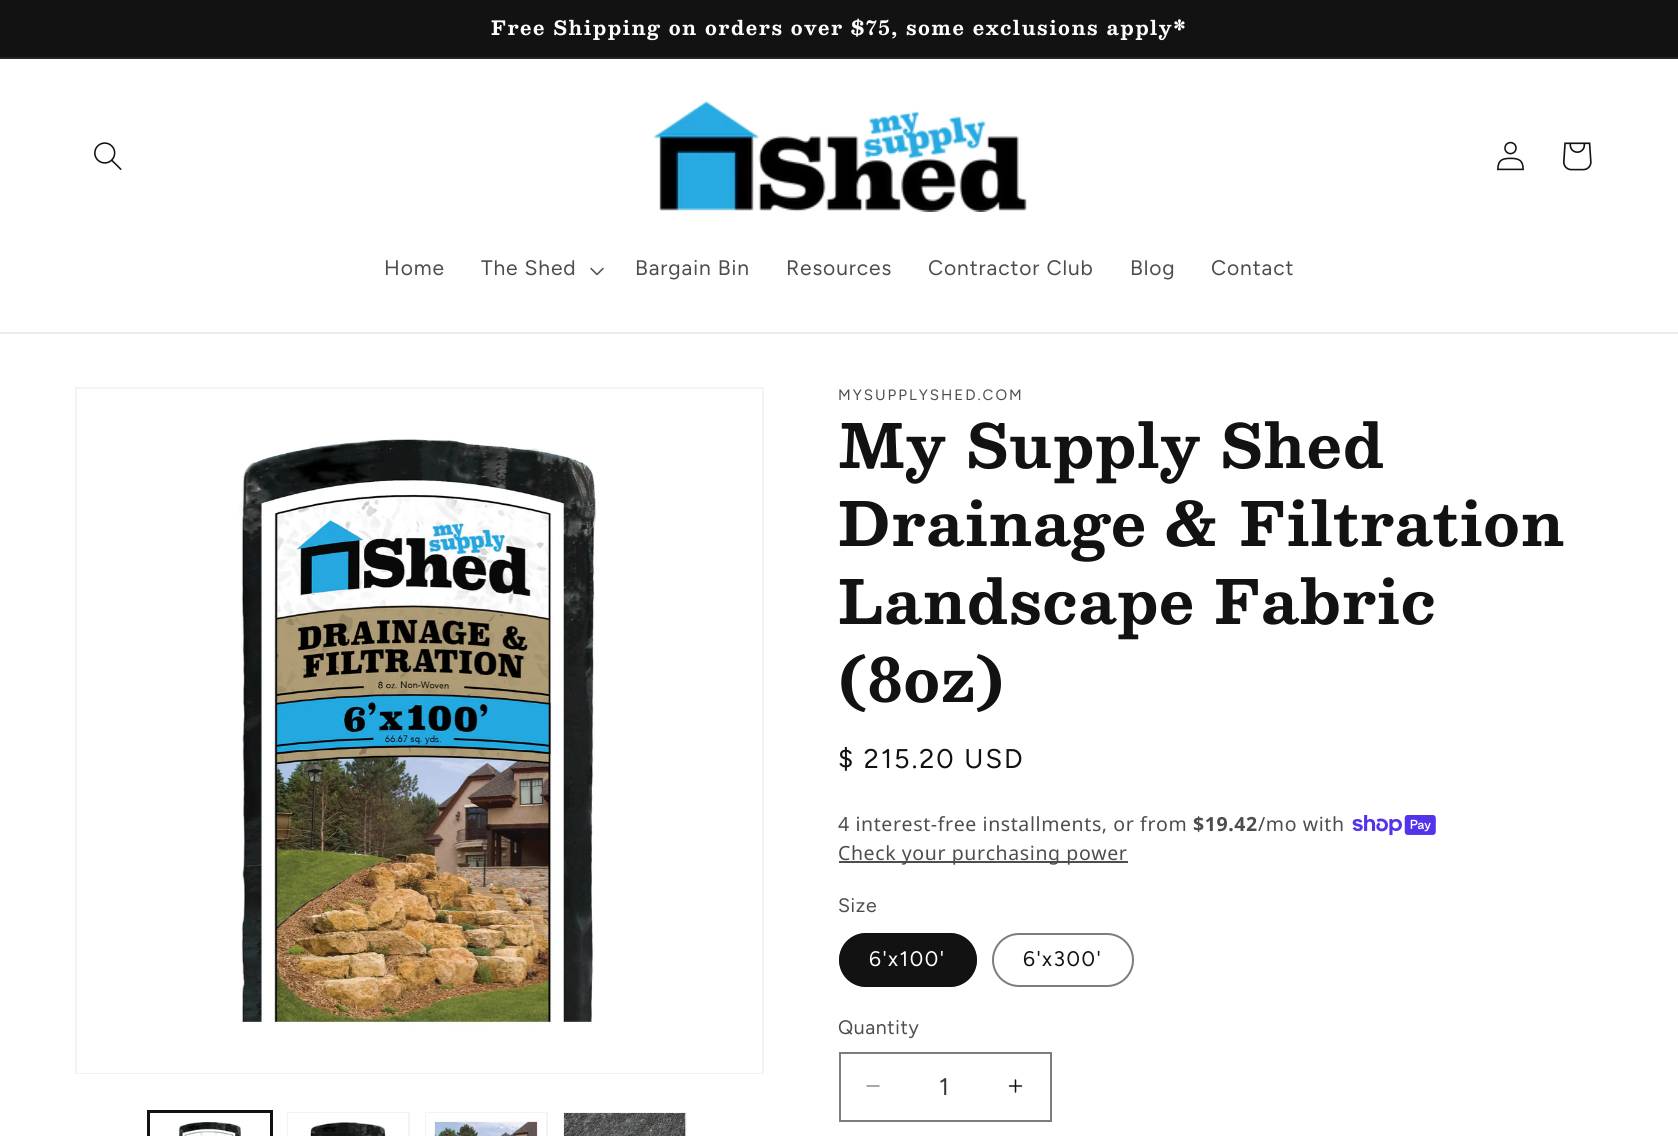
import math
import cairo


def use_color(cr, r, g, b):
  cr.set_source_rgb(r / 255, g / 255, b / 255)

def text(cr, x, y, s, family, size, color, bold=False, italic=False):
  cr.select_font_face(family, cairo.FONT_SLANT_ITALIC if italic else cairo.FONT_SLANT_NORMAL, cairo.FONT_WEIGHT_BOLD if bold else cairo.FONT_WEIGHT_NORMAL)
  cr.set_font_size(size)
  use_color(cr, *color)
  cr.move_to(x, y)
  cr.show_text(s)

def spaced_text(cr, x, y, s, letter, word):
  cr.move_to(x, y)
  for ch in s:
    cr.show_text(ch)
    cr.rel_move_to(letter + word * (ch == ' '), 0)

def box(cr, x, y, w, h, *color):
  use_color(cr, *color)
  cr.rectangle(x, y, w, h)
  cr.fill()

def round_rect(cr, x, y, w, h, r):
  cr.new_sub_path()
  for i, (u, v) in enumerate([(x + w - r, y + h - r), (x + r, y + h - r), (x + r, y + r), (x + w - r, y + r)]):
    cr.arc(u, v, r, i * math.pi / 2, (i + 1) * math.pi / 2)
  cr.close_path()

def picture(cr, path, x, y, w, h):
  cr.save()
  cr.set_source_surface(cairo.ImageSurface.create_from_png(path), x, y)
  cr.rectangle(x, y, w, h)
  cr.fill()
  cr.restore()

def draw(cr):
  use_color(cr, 255, 255, 255)
  cr.paint()
  box(cr, 0, 0, 1678, 57, 18, 18, 18)
  box(cr, 0, 57, 1678, 2, 37, 37, 37)
  box(cr, 0, 332, 1678, 2, 236, 236, 236)
  picture(cr, "img_01.png", 94, 142, 28, 28)
  picture(cr, "img_02.png", 653, 101, 374, 111)
  picture(cr, "img_03.png", 1497, 141, 27, 30)
  picture(cr, "img_04.png", 1563, 142, 29, 29)
  picture(cr, "img_05.png", 590, 267, 14, 9)
  cr.rectangle(76, 388, 687, 685)
  use_color(cr, 243, 243, 243)
  cr.stroke()
  picture(cr, "img_06.png", 77, 438, 685, 635)
  cr.rectangle(148, 1111, 124, 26)
  use_color(cr, 18, 18, 18)
  cr.stroke()
  cr.rectangle(150, 1113, 121, 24)
  cr.stroke()
  picture(cr, "img_07.png", 150, 1113, 120, 23)
  cr.rectangle(288, 1113, 121, 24)
  use_color(cr, 243, 243, 243)
  cr.stroke()
  picture(cr, "img_08.png", 288, 1113, 120, 23)
  cr.rectangle(426, 1113, 121, 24)
  cr.stroke()
  picture(cr, "img_09.png", 426, 1113, 120, 23)
  cr.rectangle(564, 1113, 122, 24)
  cr.stroke()
  picture(cr, "img_10.png", 564, 1113, 122, 23)
  picture(cr, "img_11.png", 1352, 815, 84, 21)
  box(cr, 839, 861, 289, 2, 77, 77, 77)
  use_color(cr, 18, 18, 18)
  round_rect(cr, 839, 933, 138, 54, 27)
  cr.fill()
  round_rect(cr, 840, 934, 136, 52, 26)
  cr.set_source_rgba(0.071, 0.071, 0.071, 0.55)
  cr.stroke()
  round_rect(cr, 993, 934, 140, 52, 26)
  use_color(cr, 125, 125, 125)
  cr.stroke()
  picture(cr, "img_12.png", 866, 1085, 14, 2)
  picture(cr, "img_13.png", 1008, 1079, 15, 14)
  cr.rectangle(840, 1053, 211, 68)
  cr.stroke()
  cr.select_font_face("Besley", cairo.FONT_SLANT_NORMAL, cairo.FONT_WEIGHT_BOLD)
  cr.set_font_size(19.5)
  use_color(cr, 255, 255, 255)
  spaced_text(cr, 491, 35, "Free Shipping on orders over $75, some exclusions apply*", 1.5, 0)
  cr.select_font_face("Figtree")
  cr.set_font_size(21)
  use_color(cr, 77, 77, 77)
  spaced_text(cr, 384, 275, "Home", 0.9, 0)
  spaced_text(cr, 481, 275, "The Shed", 0.9, 0)
  spaced_text(cr, 635, 275, "Bargain Bin", 0.9, 0)
  spaced_text(cr, 786, 275, "Resources", 0.9, 0)
  spaced_text(cr, 928, 275, "Contractor Club", 0.9, 0)
  spaced_text(cr, 1130, 275, "Blog", 0.9, 0)
  spaced_text(cr, 1211, 275, "Contact", 0.9, 0)
  cr.set_font_size(15)
  spaced_text(cr, 838, 400, "MYSUPPLYSHED.COM", 2, 0)
  cr.select_font_face("Besley", cairo.FONT_SLANT_NORMAL, cairo.FONT_WEIGHT_BOLD)
  cr.set_font_size(60)
  use_color(cr, 18, 18, 18)
  spaced_text(cr, 838, 468, "My Supply Shed", 0.9, 0)
  spaced_text(cr, 838, 546, "Drainage & Filtration", 0.9, 0)
  spaced_text(cr, 838, 624, "Landscape Fabric", 0.9, 0)
  spaced_text(cr, 838, 702, "(8oz)", 0.9, 0)
  cr.select_font_face("Figtree")
  cr.set_font_size(27)
  spaced_text(cr, 838, 768, "$ 215.20 USD", 2, 0)
  cr.select_font_face("Noto Sans")
  cr.set_font_size(19.5)
  use_color(cr, 77, 77, 77)
  spaced_text(cr, 838, 831, "4 interest-free installments, or from", 0.6, 0)
  cr.select_font_face("Noto Sans", cairo.FONT_SLANT_NORMAL, cairo.FONT_WEIGHT_BOLD)
  spaced_text(cr, 1193, 831, "$19.42", 0.6, 0)
  cr.select_font_face("Noto Sans")
  spaced_text(cr, 1258, 831, "/mo with", 0.6, 0)
  spaced_text(cr, 838, 860, "Check your purchasing power", 0.6, 0)
  cr.select_font_face("Figtree")
  spaced_text(cr, 838, 912, "Size", 0.6, 0)
  cr.set_font_size(21)
  use_color(cr, 255, 255, 255)
  spaced_text(cr, 869, 966, "6'x100'", 1.5, 0)
  use_color(cr, 18, 18, 18)
  spaced_text(cr, 1023, 966, "6'x300'", 1.5, 0)
  cr.set_font_size(19.5)
  use_color(cr, 77, 77, 77)
  spaced_text(cr, 838, 1034, "Quantity", 0.6, 0)
  text(cr, 939, 1095, "1", "Figtree", 24, (54, 54, 54))


surface = cairo.ImageSurface(cairo.FORMAT_RGB24, 1678, 1136)
cr = cairo.Context(surface)
options = cairo.FontOptions()
options.set_hint_metrics(cairo.HINT_METRICS_OFF)
options.set_hint_style(cairo.HINT_STYLE_NONE)
cr.set_font_options(options)
cr.set_miter_limit(4)
draw(cr)
surface.write_to_png("out.png")
